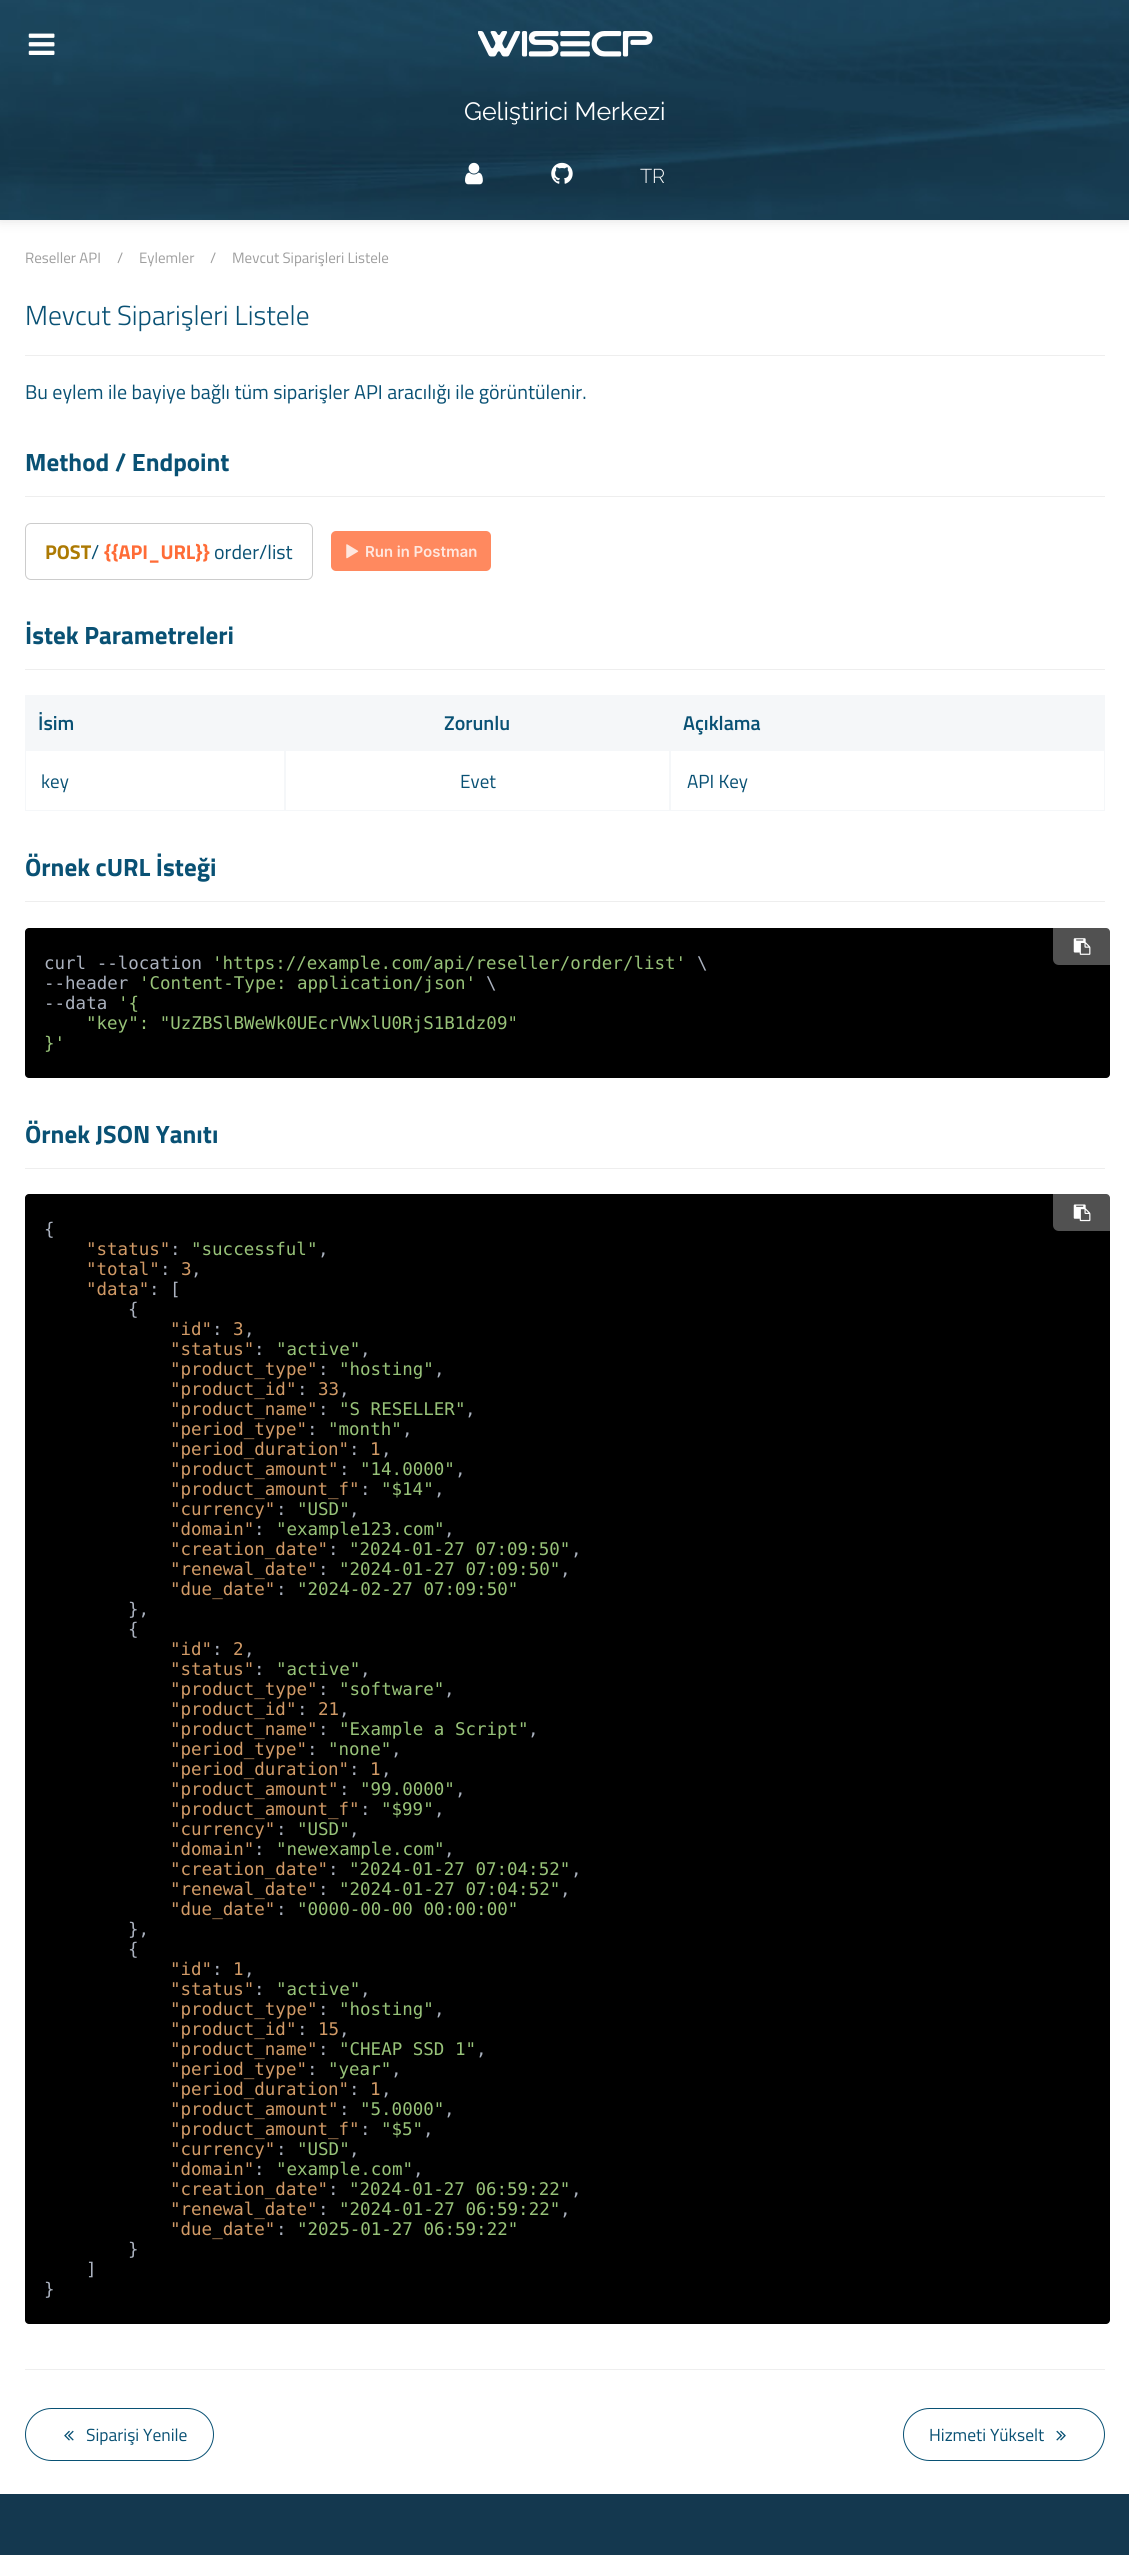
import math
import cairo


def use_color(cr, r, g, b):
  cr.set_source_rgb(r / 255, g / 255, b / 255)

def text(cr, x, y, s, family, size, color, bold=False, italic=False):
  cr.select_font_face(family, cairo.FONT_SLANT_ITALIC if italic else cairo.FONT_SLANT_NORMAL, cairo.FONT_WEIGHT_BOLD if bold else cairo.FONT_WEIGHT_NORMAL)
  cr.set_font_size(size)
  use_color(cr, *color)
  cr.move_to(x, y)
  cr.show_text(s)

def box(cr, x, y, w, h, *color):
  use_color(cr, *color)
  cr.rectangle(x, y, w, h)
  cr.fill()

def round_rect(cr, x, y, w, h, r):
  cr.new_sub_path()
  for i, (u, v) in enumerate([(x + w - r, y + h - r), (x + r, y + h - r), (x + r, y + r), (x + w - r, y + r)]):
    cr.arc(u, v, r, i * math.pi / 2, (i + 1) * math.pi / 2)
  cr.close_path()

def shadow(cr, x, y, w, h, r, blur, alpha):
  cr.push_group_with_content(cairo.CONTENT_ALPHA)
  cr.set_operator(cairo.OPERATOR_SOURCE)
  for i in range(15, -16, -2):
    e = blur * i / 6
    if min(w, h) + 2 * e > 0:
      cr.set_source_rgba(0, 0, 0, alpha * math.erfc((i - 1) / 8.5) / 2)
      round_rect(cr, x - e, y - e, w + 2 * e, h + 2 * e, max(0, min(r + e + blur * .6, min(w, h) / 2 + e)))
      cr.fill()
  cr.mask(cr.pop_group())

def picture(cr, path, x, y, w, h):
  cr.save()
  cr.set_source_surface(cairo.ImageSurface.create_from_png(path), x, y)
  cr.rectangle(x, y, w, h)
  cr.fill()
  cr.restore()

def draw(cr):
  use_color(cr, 20, 56, 79)
  cr.paint()
  box(cr, 0, 220, 1129, 2274, 255, 255, 255)
  use_color(cr, 223, 223, 223)
  shadow(cr, 0, 0, 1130, 220, 0, 6, 1)
  picture(cr, "img_02.png", 0, 0, 1129, 220)
  picture(cr, "img_01.png", 28, 33, 27, 22)
  picture(cr, "img_03.png", 478, 31, 175, 26)
  picture(cr, "img_04.png", 465, 162, 18, 23)
  picture(cr, "img_05.png", 551, 162, 22, 22)
  box(cr, 25, 355, 1080, 1, 238, 238, 238)
  box(cr, 25, 496, 1080, 1, 238, 238, 238)
  round_rect(cr, 25.5, 523.5, 287, 56, 5.5)
  use_color(cr, 204, 204, 204)
  cr.set_line_width(1)
  cr.stroke()
  picture(cr, "img_06.png", 331, 531, 160, 40)
  box(cr, 25, 669, 1080, 1, 238, 238, 238)
  box(cr, 25, 695, 1080, 55, 245, 247, 249)
  cr.rectangle(25.5, 750.5, 259, 60)
  cr.stroke()
  cr.rectangle(285.5, 750.5, 384, 60)
  cr.stroke()
  cr.rectangle(670.5, 750.5, 434, 60)
  cr.stroke()
  box(cr, 25, 901, 1080, 1, 238, 238, 238)
  use_color(cr, 0, 0, 0)
  round_rect(cr, 25, 928, 1085, 150, 4)
  cr.fill()
  cr.set_source_rgba(1, 1, 1, 0.32)
  cr.new_path()
  cr.move_to(1053, 928)
  cr.line_to(1111, 928)
  cr.line_to(1111, 965)
  cr.line_to(1059, 965)
  cr.curve_to(1055.5, 965, 1053, 962.5, 1053, 959)
  cr.close_path()
  cr.fill()
  picture(cr, "img_07.png", 1073, 938, 18, 17)
  box(cr, 25, 1168, 1080, 1, 238, 238, 238)
  use_color(cr, 0, 0, 0)
  round_rect(cr, 25, 1194, 1085, 1130, 4)
  cr.fill()
  cr.set_source_rgba(1, 1, 1, 0.32)
  cr.new_path()
  cr.move_to(1053, 1194)
  cr.line_to(1111, 1194)
  cr.line_to(1111, 1231)
  cr.line_to(1059, 1231)
  cr.curve_to(1055.5, 1231, 1053, 1228.5, 1053, 1225)
  cr.close_path()
  cr.fill()
  picture(cr, "img_08.png", 1073, 1204, 18, 18)
  box(cr, 25, 2369, 1080, 1, 238, 238, 238)
  round_rect(cr, 25.5, 2408.5, 188, 52, 26)
  use_color(cr, 9, 81, 116)
  cr.stroke()
  picture(cr, "img_09.png", 64, 2430, 10, 11)
  round_rect(cr, 903.5, 2408.5, 201, 52, 26)
  cr.stroke()
  picture(cr, "img_10.png", 1056, 2430, 10, 11)
  text(cr, 464, 120, "Geliştirici Merkezi", "Raleway", 25, (255, 255, 255))
  text(cr, 640, 183, "TR", "Raleway Light", 20, (255, 255, 255))
  text(cr, 25, 263, "Reseller API", "Titillium Web", 15, (158, 158, 158))
  text(cr, 117, 263, "/", "Titillium Web", 15, (158, 158, 158))
  text(cr, 139, 263, "Eylemler", "Titillium Web", 15, (158, 158, 158))
  text(cr, 210, 263, "/", "Titillium Web", 15, (158, 158, 158))
  text(cr, 232, 263, "Mevcut Siparişleri Listele", "Titillium Web", 15, (158, 158, 158))
  text(cr, 25, 325, "Mevcut Siparişleri Listele", "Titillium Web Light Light", 27.5, (9, 81, 116))
  text(cr, 25, 399, "Bu eylem ile bayiye bağlı tüm siparişler API aracılığı ile görüntülenir.", "Titillium Web", 20, (9, 81, 116))
  text(cr, 25, 471, "Method / Endpoint", "Titillium Web", 25, (9, 81, 116), bold=True)
  text(cr, 45, 559, "POST", "Titillium Web", 20, (173, 122, 3), bold=True)
  text(cr, 91, 559, "/", "Titillium Web", 20, (9, 81, 116))
  text(cr, 104, 559, "{{API_URL}}", "Titillium Web", 20, (255, 108, 55), bold=True)
  text(cr, 214, 559, "order/list", "Titillium Web", 20, (9, 81, 116))
  text(cr, 25, 644, "İstek Parametreleri", "Titillium Web", 25, (9, 81, 116), bold=True)
  text(cr, 38, 730, "İsim", "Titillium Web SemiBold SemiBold", 20, (9, 81, 116))
  text(cr, 444, 730, "Zorunlu", "Titillium Web SemiBold SemiBold", 20, (9, 81, 116))
  text(cr, 683, 730, "Açıklama", "Titillium Web SemiBold SemiBold", 20, (9, 81, 116))
  text(cr, 41, 788, "key", "Titillium Web", 19, (9, 81, 116))
  text(cr, 460, 788, "Evet", "Titillium Web", 19, (9, 81, 116))
  text(cr, 687, 788, "API Key", "Titillium Web", 19, (9, 81, 116))
  text(cr, 25, 876, "Örnek cURL İsteği", "Titillium Web", 25, (9, 81, 116), bold=True)
  text(cr, 44, 969, "curl --location", "DejaVu Sans Mono", 17.5, (171, 178, 191))
  text(cr, 212, 969, "'https://example.com/api/reseller/order/list'", "DejaVu Sans Mono", 17.5, (152, 195, 121))
  text(cr, 697, 969, "\\", "DejaVu Sans Mono", 17.5, (171, 178, 191))
  text(cr, 44, 989, "--header", "DejaVu Sans Mono", 17.5, (171, 178, 191))
  text(cr, 139, 989, "'Content-Type: application/json'", "DejaVu Sans Mono", 17.5, (152, 195, 121))
  text(cr, 486, 989, "\\", "DejaVu Sans Mono", 17.5, (171, 178, 191))
  text(cr, 44, 1009, "--data", "DejaVu Sans Mono", 17.5, (171, 178, 191))
  text(cr, 118, 1009, "'{", "DejaVu Sans Mono", 17.5, (152, 195, 121))
  text(cr, 86, 1029, "\"key\": \"UzZBSlBWeWk0UEcrVWxlU0RjS1B1dz09\"", "DejaVu Sans Mono", 17.5, (152, 195, 121))
  text(cr, 44, 1049, "}'", "DejaVu Sans Mono", 17.5, (152, 195, 121))
  text(cr, 25, 1143, "Örnek JSON Yanıtı", "Titillium Web", 25, (9, 81, 116), bold=True)
  text(cr, 44, 1235, "{", "DejaVu Sans Mono", 17.5, (171, 178, 191))
  text(cr, 86, 1255, "\"status\"", "DejaVu Sans Mono", 17.5, (209, 154, 102))
  text(cr, 170, 1255, ":", "DejaVu Sans Mono", 17.5, (171, 178, 191))
  text(cr, 191, 1255, "\"successful\"", "DejaVu Sans Mono", 17.5, (152, 195, 121))
  text(cr, 318, 1255, ",", "DejaVu Sans Mono", 17.5, (171, 178, 191))
  text(cr, 86, 1275, "\"total\"", "DejaVu Sans Mono", 17.5, (209, 154, 102))
  text(cr, 160, 1275, ":", "DejaVu Sans Mono", 17.5, (171, 178, 191))
  text(cr, 181, 1275, "3", "DejaVu Sans Mono", 17.5, (209, 154, 102))
  text(cr, 191, 1275, ",", "DejaVu Sans Mono", 17.5, (171, 178, 191))
  text(cr, 86, 1295, "\"data\"", "DejaVu Sans Mono", 17.5, (209, 154, 102))
  text(cr, 149, 1295, ": [", "DejaVu Sans Mono", 17.5, (171, 178, 191))
  text(cr, 128, 1315, "{", "DejaVu Sans Mono", 17.5, (171, 178, 191))
  text(cr, 170, 1335, "\"id\"", "DejaVu Sans Mono", 17.5, (209, 154, 102))
  text(cr, 212, 1335, ":", "DejaVu Sans Mono", 17.5, (171, 178, 191))
  text(cr, 233, 1335, "3", "DejaVu Sans Mono", 17.5, (209, 154, 102))
  text(cr, 244, 1335, ",", "DejaVu Sans Mono", 17.5, (171, 178, 191))
  text(cr, 170, 1355, "\"status\"", "DejaVu Sans Mono", 17.5, (209, 154, 102))
  text(cr, 254, 1355, ":", "DejaVu Sans Mono", 17.5, (171, 178, 191))
  text(cr, 276, 1355, "\"active\"", "DejaVu Sans Mono", 17.5, (152, 195, 121))
  text(cr, 360, 1355, ",", "DejaVu Sans Mono", 17.5, (171, 178, 191))
  text(cr, 170, 1375, "\"product_type\"", "DejaVu Sans Mono", 17.5, (209, 154, 102))
  text(cr, 318, 1375, ":", "DejaVu Sans Mono", 17.5, (171, 178, 191))
  text(cr, 339, 1375, "\"hosting\"", "DejaVu Sans Mono", 17.5, (152, 195, 121))
  text(cr, 434, 1375, ",", "DejaVu Sans Mono", 17.5, (171, 178, 191))
  text(cr, 170, 1395, "\"product_id\"", "DejaVu Sans Mono", 17.5, (209, 154, 102))
  text(cr, 297, 1395, ":", "DejaVu Sans Mono", 17.5, (171, 178, 191))
  text(cr, 318, 1395, "33", "DejaVu Sans Mono", 17.5, (209, 154, 102))
  text(cr, 339, 1395, ",", "DejaVu Sans Mono", 17.5, (171, 178, 191))
  text(cr, 170, 1415, "\"product_name\"", "DejaVu Sans Mono", 17.5, (209, 154, 102))
  text(cr, 318, 1415, ":", "DejaVu Sans Mono", 17.5, (171, 178, 191))
  text(cr, 339, 1415, "\"S RESELLER\"", "DejaVu Sans Mono", 17.5, (152, 195, 121))
  text(cr, 465, 1415, ",", "DejaVu Sans Mono", 17.5, (171, 178, 191))
  text(cr, 170, 1435, "\"period_type\"", "DejaVu Sans Mono", 17.5, (209, 154, 102))
  text(cr, 307, 1435, ":", "DejaVu Sans Mono", 17.5, (171, 178, 191))
  text(cr, 328, 1435, "\"month\"", "DejaVu Sans Mono", 17.5, (152, 195, 121))
  text(cr, 402, 1435, ",", "DejaVu Sans Mono", 17.5, (171, 178, 191))
  text(cr, 170, 1455, "\"period_duration\"", "DejaVu Sans Mono", 17.5, (209, 154, 102))
  text(cr, 349, 1455, ":", "DejaVu Sans Mono", 17.5, (171, 178, 191))
  text(cr, 370, 1455, "1", "DejaVu Sans Mono", 17.5, (209, 154, 102))
  text(cr, 381, 1455, ",", "DejaVu Sans Mono", 17.5, (171, 178, 191))
  text(cr, 170, 1475, "\"product_amount\"", "DejaVu Sans Mono", 17.5, (209, 154, 102))
  text(cr, 339, 1475, ":", "DejaVu Sans Mono", 17.5, (171, 178, 191))
  text(cr, 360, 1475, "\"14.0000\"", "DejaVu Sans Mono", 17.5, (152, 195, 121))
  text(cr, 455, 1475, ",", "DejaVu Sans Mono", 17.5, (171, 178, 191))
  text(cr, 170, 1495, "\"product_amount_f\"", "DejaVu Sans Mono", 17.5, (209, 154, 102))
  text(cr, 360, 1495, ":", "DejaVu Sans Mono", 17.5, (171, 178, 191))
  text(cr, 381, 1495, "\"$14\"", "DejaVu Sans Mono", 17.5, (152, 195, 121))
  text(cr, 434, 1495, ",", "DejaVu Sans Mono", 17.5, (171, 178, 191))
  text(cr, 170, 1515, "\"currency\"", "DejaVu Sans Mono", 17.5, (209, 154, 102))
  text(cr, 276, 1515, ":", "DejaVu Sans Mono", 17.5, (171, 178, 191))
  text(cr, 297, 1515, "\"USD\"", "DejaVu Sans Mono", 17.5, (152, 195, 121))
  text(cr, 349, 1515, ",", "DejaVu Sans Mono", 17.5, (171, 178, 191))
  text(cr, 170, 1535, "\"domain\"", "DejaVu Sans Mono", 17.5, (209, 154, 102))
  text(cr, 254, 1535, ":", "DejaVu Sans Mono", 17.5, (171, 178, 191))
  text(cr, 276, 1535, "\"example123.com\"", "DejaVu Sans Mono", 17.5, (152, 195, 121))
  text(cr, 444, 1535, ",", "DejaVu Sans Mono", 17.5, (171, 178, 191))
  text(cr, 170, 1555, "\"creation_date\"", "DejaVu Sans Mono", 17.5, (209, 154, 102))
  text(cr, 328, 1555, ":", "DejaVu Sans Mono", 17.5, (171, 178, 191))
  text(cr, 349, 1555, "\"2024-01-27 07:09:50\"", "DejaVu Sans Mono", 17.5, (152, 195, 121))
  text(cr, 571, 1555, ",", "DejaVu Sans Mono", 17.5, (171, 178, 191))
  text(cr, 170, 1575, "\"renewal_date\"", "DejaVu Sans Mono", 17.5, (209, 154, 102))
  text(cr, 318, 1575, ":", "DejaVu Sans Mono", 17.5, (171, 178, 191))
  text(cr, 339, 1575, "\"2024-01-27 07:09:50\"", "DejaVu Sans Mono", 17.5, (152, 195, 121))
  text(cr, 560, 1575, ",", "DejaVu Sans Mono", 17.5, (171, 178, 191))
  text(cr, 170, 1595, "\"due_date\"", "DejaVu Sans Mono", 17.5, (209, 154, 102))
  text(cr, 276, 1595, ":", "DejaVu Sans Mono", 17.5, (171, 178, 191))
  text(cr, 297, 1595, "\"2024-02-27 07:09:50\"", "DejaVu Sans Mono", 17.5, (152, 195, 121))
  text(cr, 128, 1615, "},", "DejaVu Sans Mono", 17.5, (171, 178, 191))
  text(cr, 128, 1635, "{", "DejaVu Sans Mono", 17.5, (171, 178, 191))
  text(cr, 170, 1655, "\"id\"", "DejaVu Sans Mono", 17.5, (209, 154, 102))
  text(cr, 212, 1655, ":", "DejaVu Sans Mono", 17.5, (171, 178, 191))
  text(cr, 233, 1655, "2", "DejaVu Sans Mono", 17.5, (209, 154, 102))
  text(cr, 244, 1655, ",", "DejaVu Sans Mono", 17.5, (171, 178, 191))
  text(cr, 170, 1675, "\"status\"", "DejaVu Sans Mono", 17.5, (209, 154, 102))
  text(cr, 254, 1675, ":", "DejaVu Sans Mono", 17.5, (171, 178, 191))
  text(cr, 276, 1675, "\"active\"", "DejaVu Sans Mono", 17.5, (152, 195, 121))
  text(cr, 360, 1675, ",", "DejaVu Sans Mono", 17.5, (171, 178, 191))
  text(cr, 170, 1695, "\"product_type\"", "DejaVu Sans Mono", 17.5, (209, 154, 102))
  text(cr, 318, 1695, ":", "DejaVu Sans Mono", 17.5, (171, 178, 191))
  text(cr, 339, 1695, "\"software\"", "DejaVu Sans Mono", 17.5, (152, 195, 121))
  text(cr, 444, 1695, ",", "DejaVu Sans Mono", 17.5, (171, 178, 191))
  text(cr, 170, 1715, "\"product_id\"", "DejaVu Sans Mono", 17.5, (209, 154, 102))
  text(cr, 297, 1715, ":", "DejaVu Sans Mono", 17.5, (171, 178, 191))
  text(cr, 318, 1715, "21", "DejaVu Sans Mono", 17.5, (209, 154, 102))
  text(cr, 339, 1715, ",", "DejaVu Sans Mono", 17.5, (171, 178, 191))
  text(cr, 170, 1735, "\"product_name\"", "DejaVu Sans Mono", 17.5, (209, 154, 102))
  text(cr, 318, 1735, ":", "DejaVu Sans Mono", 17.5, (171, 178, 191))
  text(cr, 339, 1735, "\"Example a Script\"", "DejaVu Sans Mono", 17.5, (152, 195, 121))
  text(cr, 528, 1735, ",", "DejaVu Sans Mono", 17.5, (171, 178, 191))
  text(cr, 170, 1755, "\"period_type\"", "DejaVu Sans Mono", 17.5, (209, 154, 102))
  text(cr, 307, 1755, ":", "DejaVu Sans Mono", 17.5, (171, 178, 191))
  text(cr, 328, 1755, "\"none\"", "DejaVu Sans Mono", 17.5, (152, 195, 121))
  text(cr, 391, 1755, ",", "DejaVu Sans Mono", 17.5, (171, 178, 191))
  text(cr, 170, 1775, "\"period_duration\"", "DejaVu Sans Mono", 17.5, (209, 154, 102))
  text(cr, 349, 1775, ":", "DejaVu Sans Mono", 17.5, (171, 178, 191))
  text(cr, 370, 1775, "1", "DejaVu Sans Mono", 17.5, (209, 154, 102))
  text(cr, 381, 1775, ",", "DejaVu Sans Mono", 17.5, (171, 178, 191))
  text(cr, 170, 1795, "\"product_amount\"", "DejaVu Sans Mono", 17.5, (209, 154, 102))
  text(cr, 339, 1795, ":", "DejaVu Sans Mono", 17.5, (171, 178, 191))
  text(cr, 360, 1795, "\"99.0000\"", "DejaVu Sans Mono", 17.5, (152, 195, 121))
  text(cr, 455, 1795, ",", "DejaVu Sans Mono", 17.5, (171, 178, 191))
  text(cr, 170, 1815, "\"product_amount_f\"", "DejaVu Sans Mono", 17.5, (209, 154, 102))
  text(cr, 360, 1815, ":", "DejaVu Sans Mono", 17.5, (171, 178, 191))
  text(cr, 381, 1815, "\"$99\"", "DejaVu Sans Mono", 17.5, (152, 195, 121))
  text(cr, 434, 1815, ",", "DejaVu Sans Mono", 17.5, (171, 178, 191))
  text(cr, 170, 1835, "\"currency\"", "DejaVu Sans Mono", 17.5, (209, 154, 102))
  text(cr, 276, 1835, ":", "DejaVu Sans Mono", 17.5, (171, 178, 191))
  text(cr, 297, 1835, "\"USD\"", "DejaVu Sans Mono", 17.5, (152, 195, 121))
  text(cr, 349, 1835, ",", "DejaVu Sans Mono", 17.5, (171, 178, 191))
  text(cr, 170, 1855, "\"domain\"", "DejaVu Sans Mono", 17.5, (209, 154, 102))
  text(cr, 254, 1855, ":", "DejaVu Sans Mono", 17.5, (171, 178, 191))
  text(cr, 276, 1855, "\"newexample.com\"", "DejaVu Sans Mono", 17.5, (152, 195, 121))
  text(cr, 444, 1855, ",", "DejaVu Sans Mono", 17.5, (171, 178, 191))
  text(cr, 170, 1875, "\"creation_date\"", "DejaVu Sans Mono", 17.5, (209, 154, 102))
  text(cr, 328, 1875, ":", "DejaVu Sans Mono", 17.5, (171, 178, 191))
  text(cr, 349, 1875, "\"2024-01-27 07:04:52\"", "DejaVu Sans Mono", 17.5, (152, 195, 121))
  text(cr, 571, 1875, ",", "DejaVu Sans Mono", 17.5, (171, 178, 191))
  text(cr, 170, 1895, "\"renewal_date\"", "DejaVu Sans Mono", 17.5, (209, 154, 102))
  text(cr, 318, 1895, ":", "DejaVu Sans Mono", 17.5, (171, 178, 191))
  text(cr, 339, 1895, "\"2024-01-27 07:04:52\"", "DejaVu Sans Mono", 17.5, (152, 195, 121))
  text(cr, 560, 1895, ",", "DejaVu Sans Mono", 17.5, (171, 178, 191))
  text(cr, 170, 1915, "\"due_date\"", "DejaVu Sans Mono", 17.5, (209, 154, 102))
  text(cr, 276, 1915, ":", "DejaVu Sans Mono", 17.5, (171, 178, 191))
  text(cr, 297, 1915, "\"0000-00-00 00:00:00\"", "DejaVu Sans Mono", 17.5, (152, 195, 121))
  text(cr, 128, 1935, "},", "DejaVu Sans Mono", 17.5, (171, 178, 191))
  text(cr, 128, 1955, "{", "DejaVu Sans Mono", 17.5, (171, 178, 191))
  text(cr, 170, 1975, "\"id\"", "DejaVu Sans Mono", 17.5, (209, 154, 102))
  text(cr, 212, 1975, ":", "DejaVu Sans Mono", 17.5, (171, 178, 191))
  text(cr, 233, 1975, "1", "DejaVu Sans Mono", 17.5, (209, 154, 102))
  text(cr, 244, 1975, ",", "DejaVu Sans Mono", 17.5, (171, 178, 191))
  text(cr, 170, 1995, "\"status\"", "DejaVu Sans Mono", 17.5, (209, 154, 102))
  text(cr, 254, 1995, ":", "DejaVu Sans Mono", 17.5, (171, 178, 191))
  text(cr, 276, 1995, "\"active\"", "DejaVu Sans Mono", 17.5, (152, 195, 121))
  text(cr, 360, 1995, ",", "DejaVu Sans Mono", 17.5, (171, 178, 191))
  text(cr, 170, 2015, "\"product_type\"", "DejaVu Sans Mono", 17.5, (209, 154, 102))
  text(cr, 318, 2015, ":", "DejaVu Sans Mono", 17.5, (171, 178, 191))
  text(cr, 339, 2015, "\"hosting\"", "DejaVu Sans Mono", 17.5, (152, 195, 121))
  text(cr, 434, 2015, ",", "DejaVu Sans Mono", 17.5, (171, 178, 191))
  text(cr, 170, 2035, "\"product_id\"", "DejaVu Sans Mono", 17.5, (209, 154, 102))
  text(cr, 297, 2035, ":", "DejaVu Sans Mono", 17.5, (171, 178, 191))
  text(cr, 318, 2035, "15", "DejaVu Sans Mono", 17.5, (209, 154, 102))
  text(cr, 339, 2035, ",", "DejaVu Sans Mono", 17.5, (171, 178, 191))
  text(cr, 170, 2055, "\"product_name\"", "DejaVu Sans Mono", 17.5, (209, 154, 102))
  text(cr, 318, 2055, ":", "DejaVu Sans Mono", 17.5, (171, 178, 191))
  text(cr, 339, 2055, "\"CHEAP SSD 1\"", "DejaVu Sans Mono", 17.5, (152, 195, 121))
  text(cr, 476, 2055, ",", "DejaVu Sans Mono", 17.5, (171, 178, 191))
  text(cr, 170, 2075, "\"period_type\"", "DejaVu Sans Mono", 17.5, (209, 154, 102))
  text(cr, 307, 2075, ":", "DejaVu Sans Mono", 17.5, (171, 178, 191))
  text(cr, 328, 2075, "\"year\"", "DejaVu Sans Mono", 17.5, (152, 195, 121))
  text(cr, 391, 2075, ",", "DejaVu Sans Mono", 17.5, (171, 178, 191))
  text(cr, 170, 2095, "\"period_duration\"", "DejaVu Sans Mono", 17.5, (209, 154, 102))
  text(cr, 349, 2095, ":", "DejaVu Sans Mono", 17.5, (171, 178, 191))
  text(cr, 370, 2095, "1", "DejaVu Sans Mono", 17.5, (209, 154, 102))
  text(cr, 381, 2095, ",", "DejaVu Sans Mono", 17.5, (171, 178, 191))
  text(cr, 170, 2115, "\"product_amount\"", "DejaVu Sans Mono", 17.5, (209, 154, 102))
  text(cr, 339, 2115, ":", "DejaVu Sans Mono", 17.5, (171, 178, 191))
  text(cr, 360, 2115, "\"5.0000\"", "DejaVu Sans Mono", 17.5, (152, 195, 121))
  text(cr, 444, 2115, ",", "DejaVu Sans Mono", 17.5, (171, 178, 191))
  text(cr, 170, 2135, "\"product_amount_f\"", "DejaVu Sans Mono", 17.5, (209, 154, 102))
  text(cr, 360, 2135, ":", "DejaVu Sans Mono", 17.5, (171, 178, 191))
  text(cr, 381, 2135, "\"$5\"", "DejaVu Sans Mono", 17.5, (152, 195, 121))
  text(cr, 423, 2135, ",", "DejaVu Sans Mono", 17.5, (171, 178, 191))
  text(cr, 170, 2155, "\"currency\"", "DejaVu Sans Mono", 17.5, (209, 154, 102))
  text(cr, 276, 2155, ":", "DejaVu Sans Mono", 17.5, (171, 178, 191))
  text(cr, 297, 2155, "\"USD\"", "DejaVu Sans Mono", 17.5, (152, 195, 121))
  text(cr, 349, 2155, ",", "DejaVu Sans Mono", 17.5, (171, 178, 191))
  text(cr, 170, 2175, "\"domain\"", "DejaVu Sans Mono", 17.5, (209, 154, 102))
  text(cr, 254, 2175, ":", "DejaVu Sans Mono", 17.5, (171, 178, 191))
  text(cr, 276, 2175, "\"example.com\"", "DejaVu Sans Mono", 17.5, (152, 195, 121))
  text(cr, 413, 2175, ",", "DejaVu Sans Mono", 17.5, (171, 178, 191))
  text(cr, 170, 2195, "\"creation_date\"", "DejaVu Sans Mono", 17.5, (209, 154, 102))
  text(cr, 328, 2195, ":", "DejaVu Sans Mono", 17.5, (171, 178, 191))
  text(cr, 349, 2195, "\"2024-01-27 06:59:22\"", "DejaVu Sans Mono", 17.5, (152, 195, 121))
  text(cr, 571, 2195, ",", "DejaVu Sans Mono", 17.5, (171, 178, 191))
  text(cr, 170, 2215, "\"renewal_date\"", "DejaVu Sans Mono", 17.5, (209, 154, 102))
  text(cr, 318, 2215, ":", "DejaVu Sans Mono", 17.5, (171, 178, 191))
  text(cr, 339, 2215, "\"2024-01-27 06:59:22\"", "DejaVu Sans Mono", 17.5, (152, 195, 121))
  text(cr, 560, 2215, ",", "DejaVu Sans Mono", 17.5, (171, 178, 191))
  text(cr, 170, 2235, "\"due_date\"", "DejaVu Sans Mono", 17.5, (209, 154, 102))
  text(cr, 276, 2235, ":", "DejaVu Sans Mono", 17.5, (171, 178, 191))
  text(cr, 297, 2235, "\"2025-01-27 06:59:22\"", "DejaVu Sans Mono", 17.5, (152, 195, 121))
  text(cr, 128, 2255, "}", "DejaVu Sans Mono", 17.5, (171, 178, 191))
  text(cr, 86, 2275, "]", "DejaVu Sans Mono", 17.5, (171, 178, 191))
  text(cr, 44, 2295, "}", "DejaVu Sans Mono", 17.5, (171, 178, 191))
  text(cr, 86, 2441, "Siparişi Yenile", "Titillium Web", 17.5, (9, 81, 116))
  text(cr, 929, 2441, "Hizmeti Yükselt", "Titillium Web", 17.5, (9, 81, 116))


surface = cairo.ImageSurface(cairo.FORMAT_RGB24, 1129, 2555)
cr = cairo.Context(surface)
options = cairo.FontOptions()
options.set_hint_metrics(cairo.HINT_METRICS_OFF)
options.set_hint_style(cairo.HINT_STYLE_NONE)
cr.set_font_options(options)
cr.set_miter_limit(4)
draw(cr)
surface.write_to_png("out.png")
